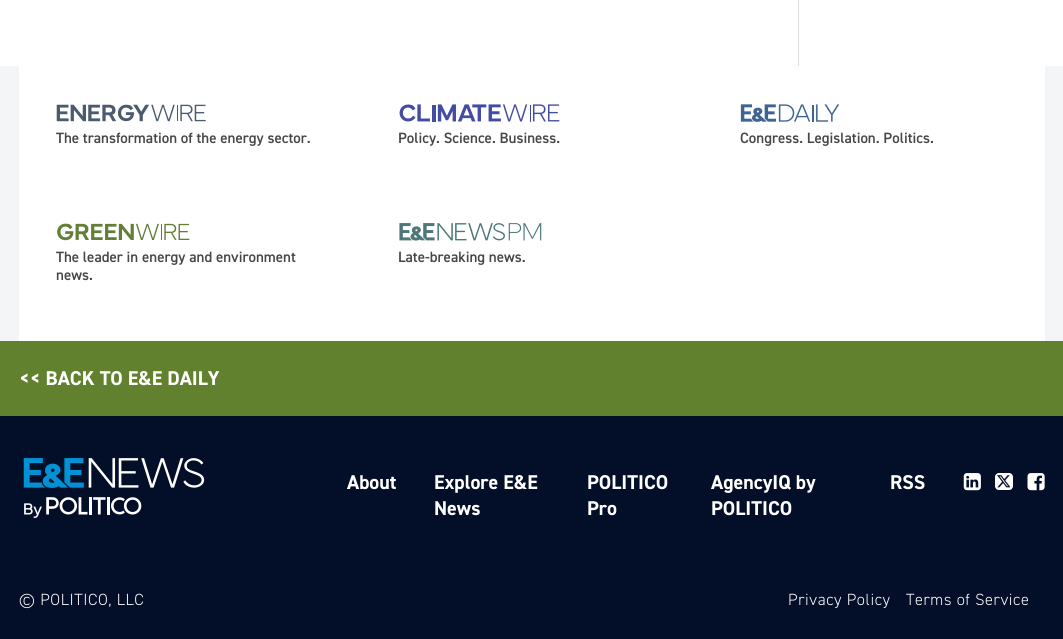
import math
import cairo


def use_color(cr, r, g, b):
  cr.set_source_rgb(r / 255, g / 255, b / 255)

def text(cr, x, y, s, family, size, color, bold=False, italic=False):
  cr.select_font_face(family, cairo.FONT_SLANT_ITALIC if italic else cairo.FONT_SLANT_NORMAL, cairo.FONT_WEIGHT_BOLD if bold else cairo.FONT_WEIGHT_NORMAL)
  cr.set_font_size(size)
  use_color(cr, *color)
  cr.move_to(x, y)
  cr.show_text(s)

def spaced_text(cr, x, y, s, letter, word):
  cr.move_to(x, y)
  for ch in s:
    cr.show_text(ch)
    cr.rel_move_to(letter + word * (ch == ' '), 0)

def box(cr, x, y, w, h, *color):
  use_color(cr, *color)
  cr.rectangle(x, y, w, h)
  cr.fill()

def round_rect(cr, x, y, w, h, r):
  cr.new_sub_path()
  for i, (u, v) in enumerate([(x + w - r, y + h - r), (x + r, y + h - r), (x + r, y + r), (x + w - r, y + r)]):
    cr.arc(u, v, r, i * math.pi / 2, (i + 1) * math.pi / 2)
  cr.close_path()

def picture(cr, path, x, y, w, h):
  cr.save()
  cr.set_source_surface(cairo.ImageSurface.create_from_png(path), x, y)
  cr.rectangle(x, y, w, h)
  cr.fill()
  cr.restore()

def draw(cr):
  use_color(cr, 255, 255, 255)
  cr.paint()
  box(cr, 798, 0, 1, 66, 221, 221, 221)
  box(cr, 0, 66, 1063, 275, 244, 245, 247)
  box(cr, 19, 66, 1026, 275, 255, 255, 255)
  picture(cr, "img_01.png", 56, 104, 150, 18)
  picture(cr, "img_02.png", 399, 104, 161, 18)
  picture(cr, "img_03.png", 740, 104, 100, 18)
  picture(cr, "img_04.png", 57, 223, 133, 18)
  picture(cr, "img_05.png", 399, 223, 143, 18)
  box(cr, 0, 341, 1063, 75, 98, 129, 46)
  box(cr, 0, 416, 1063, 223, 3, 14, 40)
  picture(cr, "img_06.png", 23, 458, 182, 60)
  picture(cr, "img_07.png", 963, 473, 18, 18)
  use_color(cr, 255, 255, 255)
  round_rect(cr, 995, 473, 18, 17, 4)
  cr.fill()
  picture(cr, "img_08.png", 997, 475, 14, 13)
  picture(cr, "img_09.png", 1027, 473, 18, 18)
  text(cr, 56, 143, "The transformation of the energy sector.", "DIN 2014 SemiBold", 15, (71, 71, 71))
  text(cr, 398, 143, "Policy. Science. Business.", "DIN 2014 SemiBold", 15, (71, 71, 71))
  text(cr, 740, 143, "Congress. Legislation. Politics.", "DIN 2014 SemiBold", 15, (71, 71, 71))
  text(cr, 56, 262, "The leader in energy and environment", "DIN 2014 SemiBold", 15, (71, 71, 71))
  text(cr, 56, 280, "news.", "DIN 2014 SemiBold", 15, (71, 71, 71))
  text(cr, 398, 262, "Late-breaking news.", "DIN 2014 SemiBold", 15, (71, 71, 71))
  text(cr, 19, 385, "<< BACK TO E&E DAILY", "DIN 2014", 20, (255, 255, 255), bold=True)
  text(cr, 347, 489, "About", "DIN 2014", 20, (255, 255, 255), bold=True)
  text(cr, 434, 489, "Explore E&E", "DIN 2014", 20, (255, 255, 255), bold=True)
  text(cr, 434, 515, "News", "DIN 2014", 20, (255, 255, 255), bold=True)
  text(cr, 587, 489, "POLITICO", "DIN 2014", 20, (255, 255, 255), bold=True)
  text(cr, 587, 515, "Pro", "DIN 2014", 20, (255, 255, 255), bold=True)
  text(cr, 711, 489, "AgencyIQ by", "DIN 2014", 20, (255, 255, 255), bold=True)
  text(cr, 711, 515, "POLITICO", "DIN 2014", 20, (255, 255, 255), bold=True)
  text(cr, 890, 489, "RSS", "DIN 2014", 20, (255, 255, 255), bold=True)
  cr.select_font_face("DIN 2014 Light")
  cr.set_font_size(16.25)
  spaced_text(cr, 19, 605, "© POLITICO, LLC", 0.6, 0)
  spaced_text(cr, 788, 605, "Privacy Policy", 0.6, 0)
  spaced_text(cr, 906, 605, "Terms of Service", 0.6, 0)


surface = cairo.ImageSurface(cairo.FORMAT_RGB24, 1063, 639)
cr = cairo.Context(surface)
options = cairo.FontOptions()
options.set_hint_metrics(cairo.HINT_METRICS_OFF)
options.set_hint_style(cairo.HINT_STYLE_NONE)
cr.set_font_options(options)
cr.set_miter_limit(4)
draw(cr)
surface.write_to_png("out.png")
